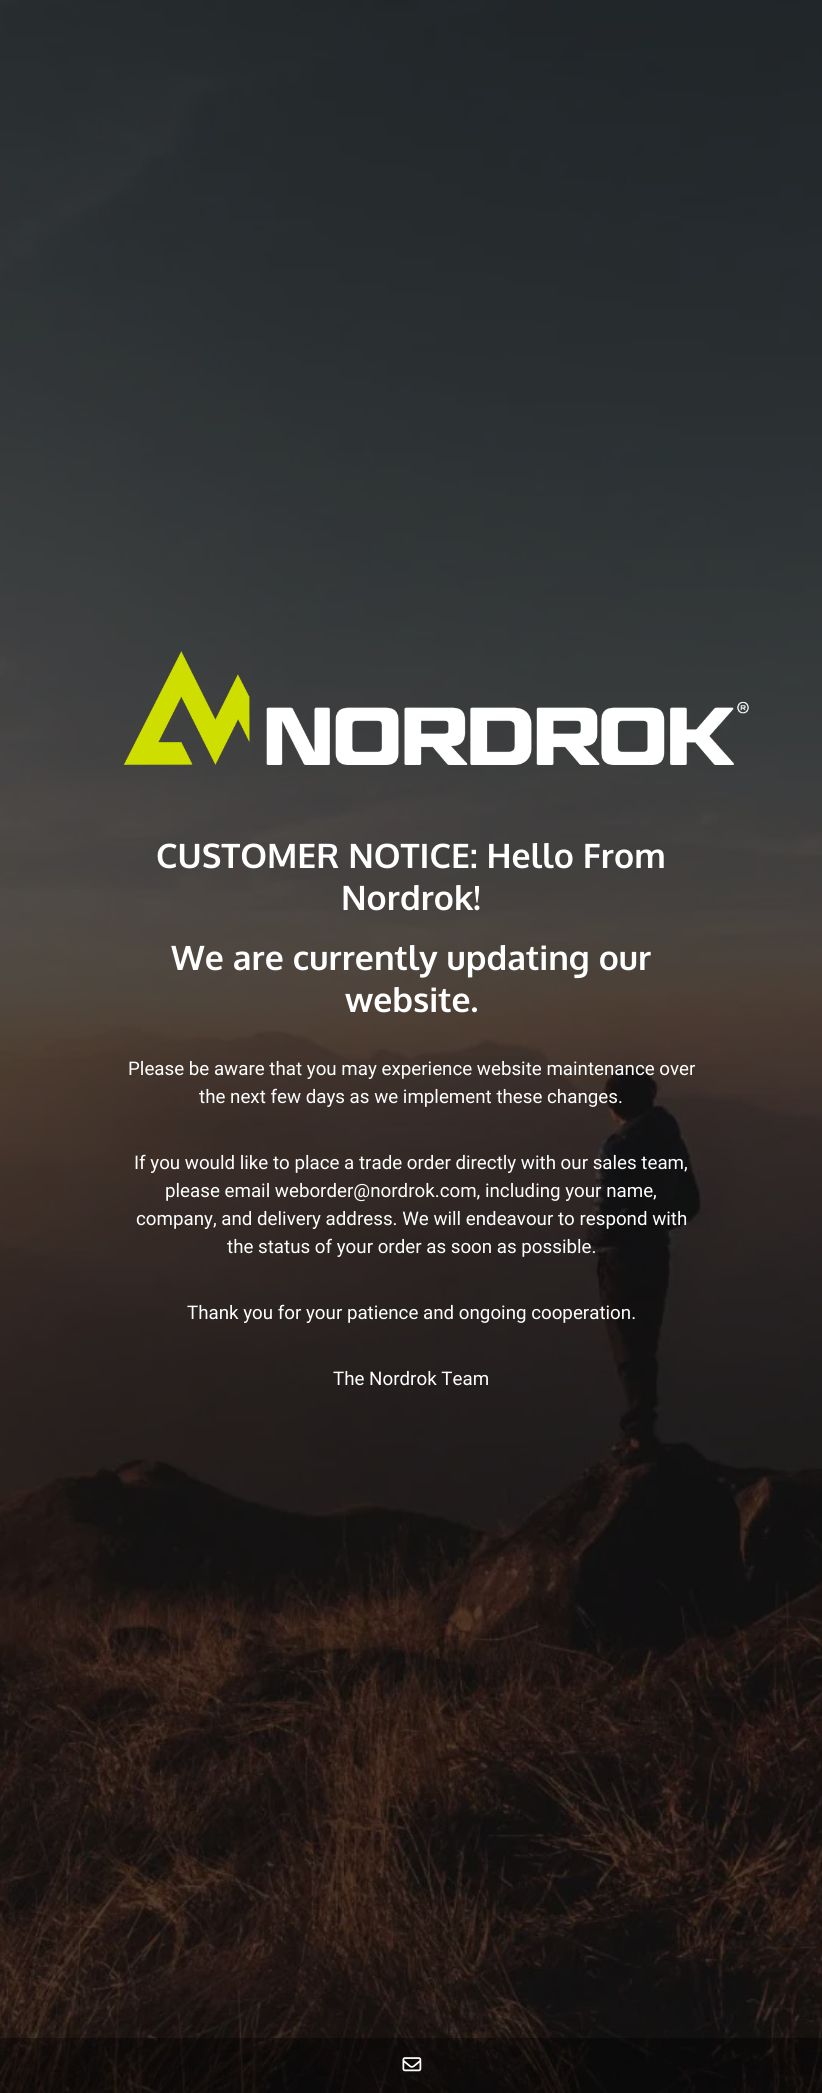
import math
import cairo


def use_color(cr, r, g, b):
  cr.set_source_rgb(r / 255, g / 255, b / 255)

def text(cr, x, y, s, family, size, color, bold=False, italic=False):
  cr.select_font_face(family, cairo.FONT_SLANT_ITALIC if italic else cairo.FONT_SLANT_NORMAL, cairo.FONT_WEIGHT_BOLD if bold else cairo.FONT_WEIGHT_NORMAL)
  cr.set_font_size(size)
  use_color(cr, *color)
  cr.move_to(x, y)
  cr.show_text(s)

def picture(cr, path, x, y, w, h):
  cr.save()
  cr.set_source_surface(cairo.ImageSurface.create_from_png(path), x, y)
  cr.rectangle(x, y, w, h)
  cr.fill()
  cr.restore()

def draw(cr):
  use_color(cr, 255, 255, 255)
  cr.paint()
  picture(cr, "img_01.png", 0, 0, 822, 2093)
  picture(cr, "img_02.png", 123, 651, 626, 114)
  cr.set_source_rgba(0, 0, 0, 0.4)
  cr.rectangle(0, 2038, 822, 55)
  cr.fill()
  picture(cr, "img_03.png", 402, 2057, 20, 15)
  text(cr, 156, 868, "CUSTOMER NOTICE: Hello From", "Oxygen", 33.75, (255, 255, 255), bold=True)
  text(cr, 341, 910, "Nordrok!", "Oxygen", 33.75, (255, 255, 255), bold=True)
  text(cr, 171, 970, "We are currently updating our", "Oxygen", 33.75, (255, 255, 255), bold=True)
  text(cr, 345, 1012, "website.", "Oxygen", 33.75, (255, 255, 255), bold=True)
  text(cr, 128, 1075, "Please be aware that you may experience website maintenance over", "Roboto", 18.75, (255, 255, 255))
  text(cr, 199, 1103, "the next few days as we implement these changes.", "Roboto", 18.75, (255, 255, 255))
  text(cr, 134, 1169, "If you would like to place a trade order directly with our sales team,", "Roboto", 18.75, (255, 255, 255))
  text(cr, 165, 1197, "please email weborder@nordrok.com, including your name,", "Roboto", 18.75, (255, 255, 255))
  text(cr, 136, 1225, "company, and delivery address. We will endeavour to respond with", "Roboto", 18.75, (255, 255, 255))
  text(cr, 227, 1253, "the status of your order as soon as possible.", "Roboto", 18.75, (255, 255, 255))
  text(cr, 187, 1319, "Thank you for your patience and ongoing cooperation.", "Roboto", 18.75, (255, 255, 255))
  text(cr, 333, 1385, "The Nordrok Team", "Roboto", 18.75, (255, 255, 255))


surface = cairo.ImageSurface(cairo.FORMAT_RGB24, 822, 2093)
cr = cairo.Context(surface)
options = cairo.FontOptions()
options.set_hint_metrics(cairo.HINT_METRICS_OFF)
options.set_hint_style(cairo.HINT_STYLE_NONE)
cr.set_font_options(options)
cr.set_miter_limit(4)
draw(cr)
surface.write_to_png("out.png")
